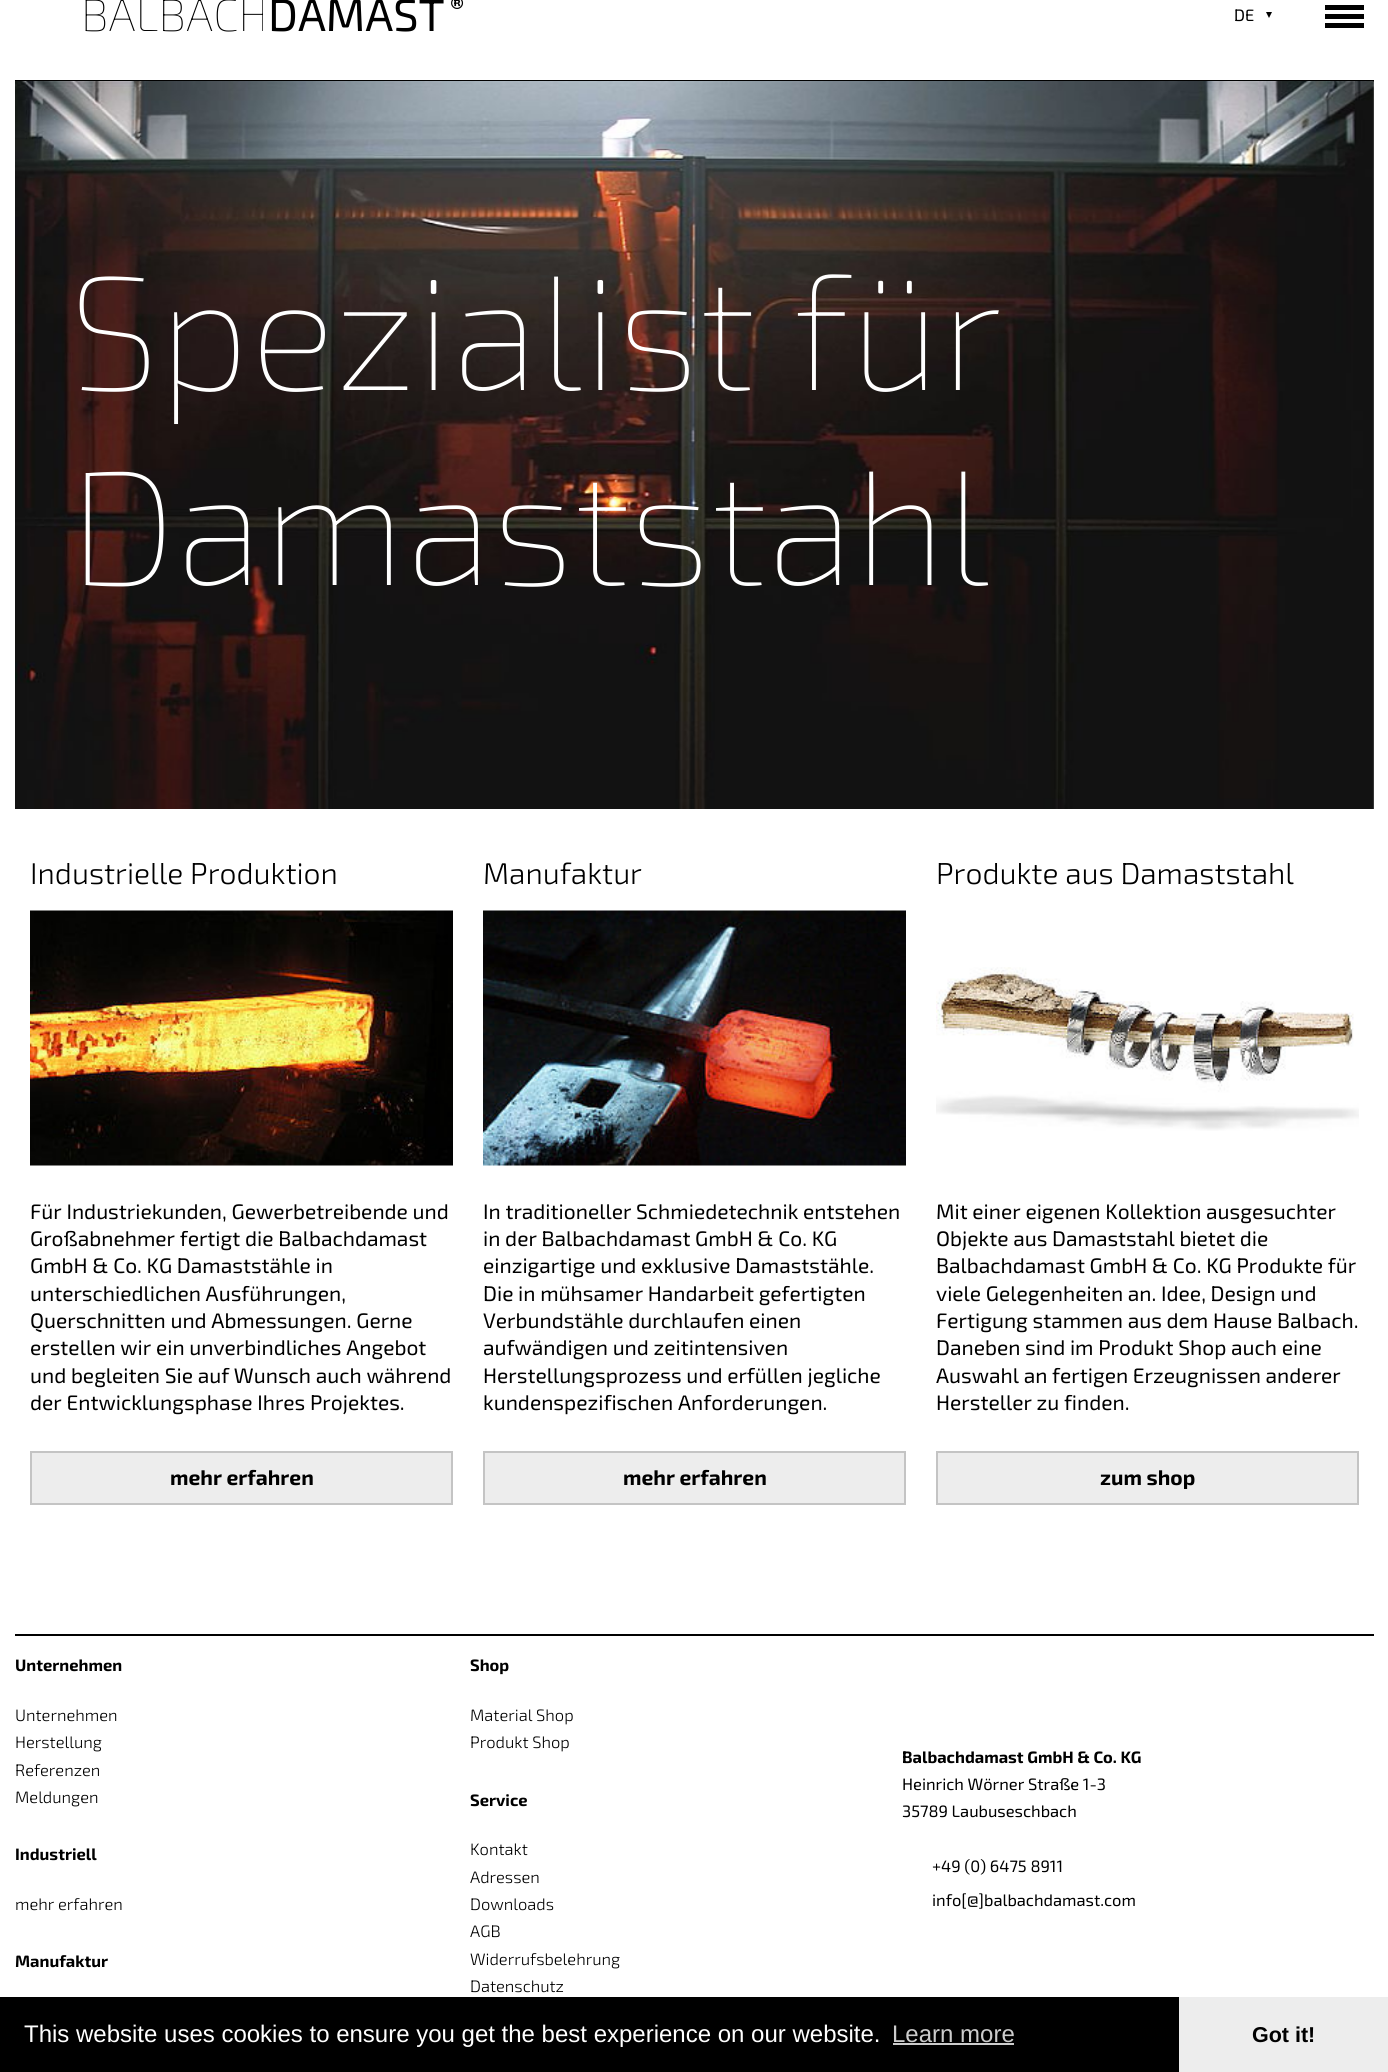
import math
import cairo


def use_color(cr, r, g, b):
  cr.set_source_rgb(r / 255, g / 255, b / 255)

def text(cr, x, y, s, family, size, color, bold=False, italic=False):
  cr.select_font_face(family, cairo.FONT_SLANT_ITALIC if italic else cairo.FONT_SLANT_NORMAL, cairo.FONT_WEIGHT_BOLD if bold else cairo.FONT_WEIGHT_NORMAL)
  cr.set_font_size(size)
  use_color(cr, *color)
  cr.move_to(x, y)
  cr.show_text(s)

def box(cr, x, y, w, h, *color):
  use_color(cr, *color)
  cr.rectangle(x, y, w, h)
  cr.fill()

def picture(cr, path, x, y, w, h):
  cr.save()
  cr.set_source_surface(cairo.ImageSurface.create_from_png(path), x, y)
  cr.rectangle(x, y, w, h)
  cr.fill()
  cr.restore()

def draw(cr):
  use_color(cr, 255, 255, 255)
  cr.paint()
  box(cr, 15, 80, 1359, 2, 0, 0, 0)
  cr.new_path()
  cr.move_to(1266, 12)
  cr.line_to(1272, 12)
  cr.line_to(1269, 18)
  cr.close_path()
  cr.fill()
  box(cr, 1325, 5, 39, 5, 0, 0, 0)
  box(cr, 1325, 14, 39, 5, 0, 0, 0)
  box(cr, 1325, 23, 39, 5, 0, 0, 0)
  picture(cr, "img_01.png", 15, 81, 1359, 728)
  picture(cr, "img_02.png", 30, 910, 423, 256)
  use_color(cr, 237, 237, 237)
  cr.rectangle(31, 1452, 421, 52)
  cr.fill_preserve()
  use_color(cr, 196, 196, 196)
  cr.stroke()
  picture(cr, "img_03.png", 483, 910, 423, 256)
  use_color(cr, 237, 237, 237)
  cr.rectangle(484, 1452, 421, 52)
  cr.fill_preserve()
  use_color(cr, 196, 196, 196)
  cr.stroke()
  picture(cr, "img_04.png", 936, 967, 423, 164)
  use_color(cr, 237, 237, 237)
  cr.rectangle(937, 1452, 421, 52)
  cr.fill_preserve()
  use_color(cr, 196, 196, 196)
  cr.stroke()
  box(cr, 15, 1634, 1359, 2, 0, 0, 0)
  box(cr, 0, 1997, 1179, 75, 0, 0, 0)
  box(cr, 893, 2043, 121, 2, 204, 204, 204)
  box(cr, 1179, 1997, 209, 75, 237, 237, 237)
  text(cr, 81, 31, "BALBACH", "Exo 2 Thin", 45, (0, 0, 0))
  text(cr, 268, 31, "DAMAST", "Exo 2", 45, (0, 0, 0))
  text(cr, 450, 16, "®", "Exo 2", 27, (0, 0, 0), bold=True)
  text(cr, 1234, 21, "DE", "Exo 2", 16.5, (0, 0, 0))
  text(cr, 69, 390, "Spezialist für", "Exo 2 Thin", 162, (255, 255, 255))
  text(cr, 69, 585, "Damaststahl", "Exo 2 Thin", 162, (255, 255, 255))
  text(cr, 30, 884, "Industrielle Produktion", "Exo 2 Light", 30, (0, 0, 0))
  text(cr, 30, 1219, "Für Industriekunden, Gewerbetreibende und", "Exo 2", 21, (0, 0, 0))
  text(cr, 30, 1246, "Großabnehmer fertigt die Balbachdamast", "Exo 2", 21, (0, 0, 0))
  text(cr, 30, 1273, "GmbH & Co. KG Damaststähle in", "Exo 2", 21, (0, 0, 0))
  text(cr, 30, 1301, "unterschiedlichen Ausführungen,", "Exo 2", 21, (0, 0, 0))
  text(cr, 30, 1328, "Querschnitten und Abmessungen. Gerne", "Exo 2", 21, (0, 0, 0))
  text(cr, 30, 1355, "erstellen wir ein unverbindliches Angebot", "Exo 2", 21, (0, 0, 0))
  text(cr, 30, 1383, "und begleiten Sie auf Wunsch auch während", "Exo 2", 21, (0, 0, 0))
  text(cr, 30, 1410, "der Entwicklungsphase Ihres Projektes.", "Exo 2", 21, (0, 0, 0))
  text(cr, 170, 1485, "mehr erfahren", "Exo 2", 21, (0, 0, 0), bold=True)
  text(cr, 483, 884, "Manufaktur", "Exo 2 Light", 30, (0, 0, 0))
  text(cr, 483, 1219, "In traditioneller Schmiedetechnik entstehen", "Exo 2", 21, (0, 0, 0))
  text(cr, 483, 1246, "in der Balbachdamast GmbH & Co. KG", "Exo 2", 21, (0, 0, 0))
  text(cr, 483, 1273, "einzigartige und exklusive Damaststähle.", "Exo 2", 21, (0, 0, 0))
  text(cr, 483, 1301, "Die in mühsamer Handarbeit gefertigten", "Exo 2", 21, (0, 0, 0))
  text(cr, 483, 1328, "Verbundstähle durchlaufen einen", "Exo 2", 21, (0, 0, 0))
  text(cr, 483, 1355, "aufwändigen und zeitintensiven", "Exo 2", 21, (0, 0, 0))
  text(cr, 483, 1383, "Herstellungsprozess und erfüllen jegliche", "Exo 2", 21, (0, 0, 0))
  text(cr, 483, 1410, "kundenspezifischen Anforderungen.", "Exo 2", 21, (0, 0, 0))
  text(cr, 623, 1485, "mehr erfahren", "Exo 2", 21, (0, 0, 0), bold=True)
  text(cr, 936, 884, "Produkte aus Damaststahl", "Exo 2 Light", 30, (0, 0, 0))
  text(cr, 936, 1219, "Mit einer eigenen Kollektion ausgesuchter", "Exo 2", 21, (0, 0, 0))
  text(cr, 936, 1246, "Objekte aus Damaststahl bietet die", "Exo 2", 21, (0, 0, 0))
  text(cr, 936, 1273, "Balbachdamast GmbH & Co. KG Produkte für", "Exo 2", 21, (0, 0, 0))
  text(cr, 936, 1301, "viele Gelegenheiten an. Idee, Design und", "Exo 2", 21, (0, 0, 0))
  text(cr, 936, 1328, "Fertigung stammen aus dem Hause Balbach.", "Exo 2", 21, (0, 0, 0))
  text(cr, 936, 1355, "Daneben sind im Produkt Shop auch eine", "Exo 2", 21, (0, 0, 0))
  text(cr, 936, 1383, "Auswahl an fertigen Erzeugnissen anderer", "Exo 2", 21, (0, 0, 0))
  text(cr, 936, 1410, "Hersteller zu finden.", "Exo 2", 21, (0, 0, 0))
  text(cr, 1100, 1485, "zum shop", "Exo 2", 21, (0, 0, 0), bold=True)
  text(cr, 15, 1671, "Unternehmen", "Exo 2", 16.5, (0, 0, 0), bold=True)
  text(cr, 15, 1721, "Unternehmen", "Exo 2 Light", 16.5, (0, 0, 0))
  text(cr, 15, 1748, "Herstellung", "Exo 2 Light", 16.5, (0, 0, 0))
  text(cr, 15, 1776, "Referenzen", "Exo 2 Light", 16.5, (0, 0, 0))
  text(cr, 15, 1803, "Meldungen", "Exo 2 Light", 16.5, (0, 0, 0))
  text(cr, 470, 1671, "Shop", "Exo 2", 16.5, (0, 0, 0), bold=True)
  text(cr, 470, 1721, "Material Shop", "Exo 2 Light", 16.5, (0, 0, 0))
  text(cr, 470, 1748, "Produkt Shop", "Exo 2 Light", 16.5, (0, 0, 0))
  text(cr, 15, 1860, "Industriell", "Exo 2", 16.5, (0, 0, 0), bold=True)
  text(cr, 15, 1910, "mehr erfahren", "Exo 2 Light", 16.5, (0, 0, 0))
  text(cr, 470, 1806, "Service", "Exo 2", 16.5, (0, 0, 0), bold=True)
  text(cr, 470, 1855, "Kontakt", "Exo 2 Light", 16.5, (0, 0, 0))
  text(cr, 470, 1883, "Adressen", "Exo 2 Light", 16.5, (0, 0, 0))
  text(cr, 470, 1910, "Downloads", "Exo 2 Light", 16.5, (0, 0, 0))
  text(cr, 470, 1937, "AGB", "Exo 2 Light", 16.5, (0, 0, 0))
  text(cr, 470, 1965, "Widerrufsbelehrung", "Exo 2 Light", 16.5, (0, 0, 0))
  text(cr, 470, 1992, "Datenschutz", "Exo 2 Light", 16.5, (0, 0, 0))
  text(cr, 15, 1967, "Manufaktur", "Exo 2", 16.5, (0, 0, 0), bold=True)
  text(cr, 902, 1763, "Balbachdamast GmbH & Co. KG", "Exo 2", 16.5, (0, 0, 0), bold=True)
  text(cr, 902, 1790, "Heinrich Wörner Straße 1-3", "Exo 2", 16.5, (0, 0, 0))
  text(cr, 902, 1817, "35789 Laubuseschbach", "Exo 2", 16.5, (0, 0, 0))
  text(cr, 932, 1872, "+49 (0) 6475 8911", "Exo 2", 16.5, (0, 0, 0))
  text(cr, 932, 1906, "info[@]balbachdamast.com", "Exo 2", 16.5, (0, 0, 0))
  text(cr, 24, 2042, "This website uses cookies to ensure you get the best experience on our website.", "Liberation Sans", 24, (255, 255, 255))
  text(cr, 892, 2042, "Learn more", "Liberation Sans", 24, (204, 204, 204))
  text(cr, 1252, 2042, "Got it!", "Liberation Sans", 21.5, (0, 0, 0), bold=True)


surface = cairo.ImageSurface(cairo.FORMAT_RGB24, 1388, 2072)
cr = cairo.Context(surface)
options = cairo.FontOptions()
options.set_hint_metrics(cairo.HINT_METRICS_OFF)
options.set_hint_style(cairo.HINT_STYLE_NONE)
cr.set_font_options(options)
cr.set_miter_limit(4)
draw(cr)
surface.write_to_png("out.png")
